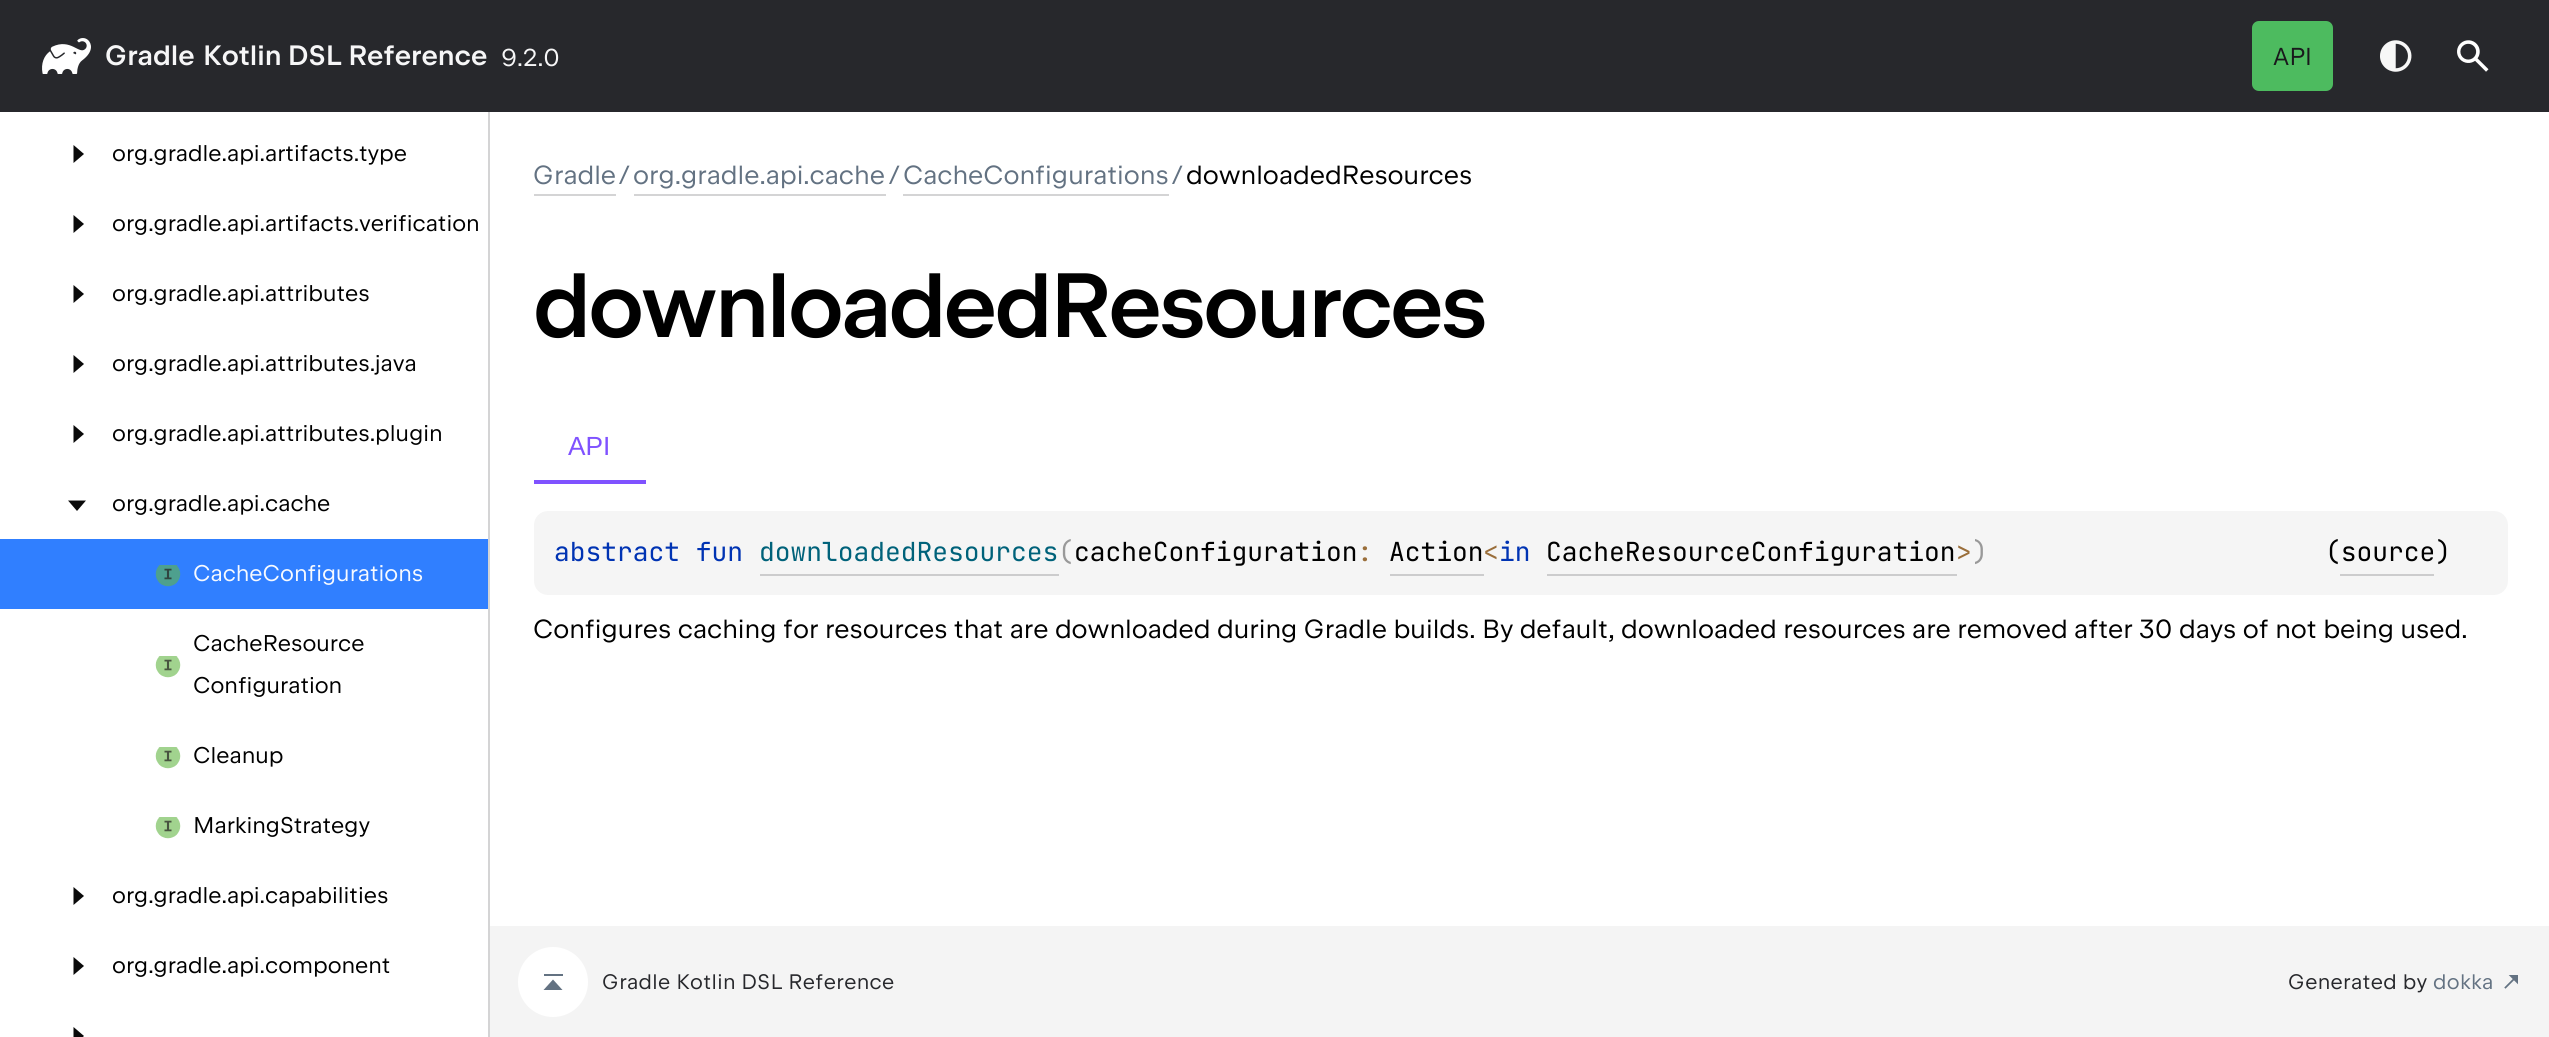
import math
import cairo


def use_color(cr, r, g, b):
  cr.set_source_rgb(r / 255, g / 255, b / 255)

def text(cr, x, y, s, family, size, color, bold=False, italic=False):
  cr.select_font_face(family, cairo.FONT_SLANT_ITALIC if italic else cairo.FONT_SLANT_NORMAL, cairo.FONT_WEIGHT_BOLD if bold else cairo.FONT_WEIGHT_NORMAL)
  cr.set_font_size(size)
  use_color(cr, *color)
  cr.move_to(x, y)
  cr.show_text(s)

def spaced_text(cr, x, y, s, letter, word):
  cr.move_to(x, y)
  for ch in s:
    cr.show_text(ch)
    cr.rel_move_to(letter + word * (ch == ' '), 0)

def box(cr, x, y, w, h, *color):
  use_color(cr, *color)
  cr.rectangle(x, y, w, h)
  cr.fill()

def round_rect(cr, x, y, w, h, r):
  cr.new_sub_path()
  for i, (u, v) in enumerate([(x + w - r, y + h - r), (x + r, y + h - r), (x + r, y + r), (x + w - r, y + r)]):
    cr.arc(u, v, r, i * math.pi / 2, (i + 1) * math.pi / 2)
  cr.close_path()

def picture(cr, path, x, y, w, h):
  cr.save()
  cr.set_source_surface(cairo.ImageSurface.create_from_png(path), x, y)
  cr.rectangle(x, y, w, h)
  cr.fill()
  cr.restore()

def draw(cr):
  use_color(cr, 255, 255, 255)
  cr.paint()
  box(cr, 0, 0, 2549, 112, 39, 40, 44)
  picture(cr, "img_01.png", 42, 38, 49, 36)
  use_color(cr, 77, 187, 95)
  round_rect(cr, 2252, 21, 81, 70, 7)
  cr.fill()
  picture(cr, "img_02.png", 2380, 40, 32, 32)
  picture(cr, "img_03.png", 2457, 40, 32, 32)
  box(cr, 488, 112, 2, 925, 212, 212, 213)
  use_color(cr, 10, 10, 10)
  cr.new_path()
  cr.move_to(84, 154)
  cr.line_to(73.5, 163)
  cr.line_to(73.5, 145)
  cr.close_path()
  cr.fill()
  cr.new_path()
  cr.move_to(84, 224)
  cr.line_to(73.5, 233)
  cr.line_to(73.5, 215)
  cr.close_path()
  cr.fill()
  cr.new_path()
  cr.move_to(84, 294)
  cr.line_to(73.5, 303)
  cr.line_to(73.5, 285)
  cr.close_path()
  cr.fill()
  cr.new_path()
  cr.move_to(84, 364)
  cr.line_to(73.5, 373)
  cr.line_to(73.5, 355)
  cr.close_path()
  cr.fill()
  cr.new_path()
  cr.move_to(84, 434)
  cr.line_to(73.5, 443)
  cr.line_to(73.5, 425)
  cr.close_path()
  cr.fill()
  cr.new_path()
  cr.move_to(77, 511)
  cr.line_to(68, 500.5)
  cr.line_to(86, 500.5)
  cr.close_path()
  cr.fill()
  box(cr, 0, 539, 488, 70, 48, 127, 255)
  picture(cr, "img_04.png", 155, 565, 26, 22)
  picture(cr, "img_05.png", 155, 656, 26, 22)
  picture(cr, "img_05.png", 155, 747, 26, 22)
  picture(cr, "img_05.png", 155, 817, 26, 22)
  use_color(cr, 10, 10, 10)
  cr.new_path()
  cr.move_to(84, 896)
  cr.line_to(73.5, 905)
  cr.line_to(73.5, 887)
  cr.close_path()
  cr.fill()
  cr.new_path()
  cr.move_to(84, 966)
  cr.line_to(73.5, 975)
  cr.line_to(73.5, 957)
  cr.close_path()
  cr.fill()
  cr.new_path()
  cr.move_to(84, 1036)
  cr.line_to(73.5, 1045)
  cr.line_to(73.5, 1027)
  cr.close_path()
  cr.fill()
  box(cr, 534, 194, 82, 2, 212, 212, 213)
  box(cr, 634, 194, 252, 2, 212, 212, 213)
  box(cr, 903, 194, 266, 2, 212, 212, 213)
  box(cr, 534, 480, 112, 4, 127, 82, 255)
  use_color(cr, 245, 245, 245)
  round_rect(cr, 534, 511, 1974, 84, 14)
  cr.fill()
  box(cr, 760, 574, 299, 2, 204, 204, 205)
  box(cr, 1390, 574, 94, 2, 204, 204, 205)
  box(cr, 1547, 574, 410, 2, 204, 204, 205)
  box(cr, 2340, 574, 94, 2, 204, 204, 205)
  box(cr, 490, 926, 2059, 111, 244, 244, 244)
  use_color(cr, 255, 255, 255)
  cr.arc(553, 982, 35, 0, 2 * math.pi)
  cr.fill()
  use_color(cr, 99, 114, 130)
  cr.new_path()
  cr.move_to(562.5, 990)
  cr.line_to(543.5, 990)
  cr.line_to(553, 979.5)
  cr.close_path()
  cr.fill()
  box(cr, 544, 974, 19, 2, 99, 114, 130)
  picture(cr, "img_06.png", 2504, 975, 14, 14)
  text(cr, 105, 65, "Gradle", "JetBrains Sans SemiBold", 28, (246, 246, 247))
  text(cr, 203, 65, "Kotlin DSL Reference", "JetBrains Sans SemiBold", 28, (246, 246, 247))
  text(cr, 501, 66, "9.2.0", "JetBrains Sans", 24.5, (246, 246, 247))
  text(cr, 2273, 65, "API", "JetBrains Sans", 24.5, (25, 25, 28))
  text(cr, 112, 161, "org.gradle.api.artifacts.", "JetBrains Sans", 22.75, (0, 0, 0))
  text(cr, 359, 161, "type", "JetBrains Sans", 22.75, (0, 0, 0))
  text(cr, 112, 231, "org.gradle.api.artifacts.", "JetBrains Sans", 22.75, (0, 0, 0))
  text(cr, 359, 231, "verification", "JetBrains Sans", 22.75, (0, 0, 0))
  text(cr, 112, 301, "org.gradle.api.attributes", "JetBrains Sans", 22.75, (0, 0, 0))
  text(cr, 112, 371, "org.gradle.api.attributes.java", "JetBrains Sans", 22.75, (0, 0, 0))
  text(cr, 112, 441, "org.gradle.api.attributes.plugin", "JetBrains Sans", 22.75, (0, 0, 0))
  text(cr, 112, 511, "org.gradle.api.cache", "JetBrains Sans", 22.75, (0, 0, 0))
  text(cr, 193, 581, "CacheConfigurations", "JetBrains Sans", 22.75, (247, 250, 255))
  text(cr, 193, 651, "CacheResource", "JetBrains Sans", 22.75, (0, 0, 0))
  text(cr, 193, 693, "Configuration", "JetBrains Sans", 22.75, (0, 0, 0))
  text(cr, 193, 763, "Cleanup", "JetBrains Sans", 22.75, (0, 0, 0))
  text(cr, 193, 833, "MarkingStrategy", "JetBrains Sans", 22.75, (0, 0, 0))
  text(cr, 112, 903, "org.gradle.api.capabilities", "JetBrains Sans", 22.75, (0, 0, 0))
  text(cr, 112, 973, "org.gradle.api.component", "JetBrains Sans", 22.75, (0, 0, 0))
  text(cr, 533, 184, "Gradle", "JetBrains Sans", 26.25, (99, 114, 130))
  text(cr, 619, 184, "/", "JetBrains Sans", 26.25, (99, 114, 130))
  text(cr, 633, 184, "org.gradle.api.cache", "JetBrains Sans", 26.25, (99, 114, 130))
  text(cr, 889, 184, "/", "JetBrains Sans", 26.25, (99, 114, 130))
  text(cr, 903, 184, "CacheConfigurations", "JetBrains Sans", 26.25, (99, 114, 130))
  text(cr, 1172, 184, "/", "JetBrains Sans", 26.25, (99, 114, 130))
  text(cr, 1186, 184, "downloadedResources", "JetBrains Sans", 26.25, (0, 0, 0))
  cr.select_font_face("JetBrains Sans Medium")
  cr.set_font_size(91)
  spaced_text(cr, 533, 337, "downloadedResources", -2.6, 0)
  text(cr, 568, 455, "API", "Liberation Sans", 26.25, (127, 82, 255))
  text(cr, 554, 561, "abstract fun", "JetBrains Mono", 26.25, (0, 51, 179))
  text(cr, 759, 561, "downloadedResources", "JetBrains Mono", 26.25, (0, 98, 122))
  text(cr, 1058, 561, "(", "JetBrains Mono", 26.25, (153, 153, 153))
  text(cr, 1074, 561, "cacheConfiguration", "JetBrains Mono", 26.25, (0, 0, 0))
  text(cr, 1357, 561, ":", "JetBrains Mono", 26.25, (154, 110, 58))
  text(cr, 1389, 561, "Action", "JetBrains Mono", 26.25, (0, 0, 0))
  text(cr, 1483, 561, "<", "JetBrains Mono", 26.25, (154, 110, 58))
  text(cr, 1499, 561, "in", "JetBrains Mono", 26.25, (0, 51, 179))
  text(cr, 1546, 561, "CacheResourceConfiguration", "JetBrains Mono", 26.25, (0, 0, 0))
  text(cr, 1956, 561, ">", "JetBrains Mono", 26.25, (154, 110, 58))
  text(cr, 1972, 561, ")", "JetBrains Mono", 26.25, (153, 153, 153))
  text(cr, 2325, 561, "(source)", "JetBrains Mono", 26.25, (0, 0, 0))
  text(cr, 533, 638, "Configures caching for resources that are downloaded during Gradle builds. By default, downloaded resources are removed after 30 days of not being used.", "JetBrains Sans", 26.25, (0, 0, 0))
  cr.set_font_size(21)
  use_color(cr, 39, 40, 44)
  spaced_text(cr, 602, 989, "Gradle Kotlin DSL Reference", 0.35, 0)
  spaced_text(cr, 2288, 989, "Generated by", 0.35, 0)
  use_color(cr, 99, 114, 130)
  spaced_text(cr, 2433, 989, "dokka", 0.35, 0)


surface = cairo.ImageSurface(cairo.FORMAT_RGB24, 2549, 1037)
cr = cairo.Context(surface)
options = cairo.FontOptions()
options.set_hint_metrics(cairo.HINT_METRICS_OFF)
options.set_hint_style(cairo.HINT_STYLE_NONE)
cr.set_font_options(options)
cr.set_miter_limit(4)
draw(cr)
surface.write_to_png("out.png")
